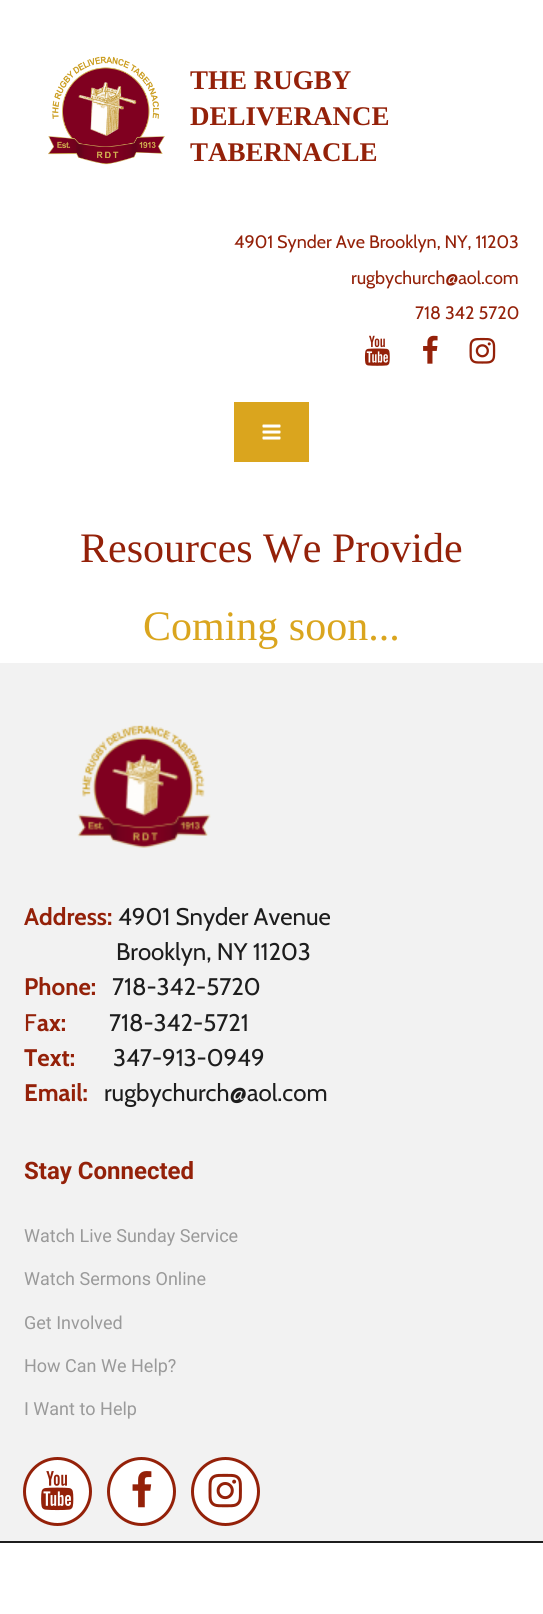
import math
import cairo


def use_color(cr, r, g, b):
  cr.set_source_rgb(r / 255, g / 255, b / 255)

def text(cr, x, y, s, family, size, color, bold=False, italic=False):
  cr.select_font_face(family, cairo.FONT_SLANT_ITALIC if italic else cairo.FONT_SLANT_NORMAL, cairo.FONT_WEIGHT_BOLD if bold else cairo.FONT_WEIGHT_NORMAL)
  cr.set_font_size(size)
  use_color(cr, *color)
  cr.move_to(x, y)
  cr.show_text(s)

def box(cr, x, y, w, h, *color):
  use_color(cr, *color)
  cr.rectangle(x, y, w, h)
  cr.fill()

def picture(cr, path, x, y, w, h):
  cr.save()
  cr.set_source_surface(cairo.ImageSurface.create_from_png(path), x, y)
  cr.rectangle(x, y, w, h)
  cr.fill()
  cr.restore()

def draw(cr):
  use_color(cr, 255, 255, 255)
  cr.paint()
  picture(cr, "img_01.png", 48, 56, 117, 109)
  picture(cr, "img_02.png", 364, 335, 26, 31)
  picture(cr, "img_03.png", 423, 335, 15, 29)
  picture(cr, "img_04.png", 469, 337, 27, 27)
  box(cr, 234, 402, 75, 60, 218, 165, 30)
  picture(cr, "img_05.png", 262, 424, 19, 16)
  box(cr, 0, 663, 543, 878, 242, 242, 242)
  box(cr, 0, 1541, 543, 2, 29, 29, 29)
  picture(cr, "img_06.png", 77, 725, 134, 123)
  use_color(cr, 255, 255, 255)
  cr.arc(57.5, 1491.5, 33, 0, 2 * math.pi)
  cr.fill_preserve()
  use_color(cr, 148, 33, 9)
  cr.set_line_width(3)
  cr.stroke()
  picture(cr, "img_07.png", 41, 1471, 33, 40)
  use_color(cr, 255, 255, 255)
  cr.arc(141.5, 1491.5, 33, 0, 2 * math.pi)
  cr.fill_preserve()
  use_color(cr, 148, 33, 9)
  cr.stroke()
  picture(cr, "img_08.png", 132, 1471, 20, 37)
  use_color(cr, 255, 255, 255)
  cr.arc(225.5, 1491.5, 33, 0, 2 * math.pi)
  cr.fill_preserve()
  use_color(cr, 148, 33, 9)
  cr.stroke()
  picture(cr, "img_09.png", 208, 1473, 34, 35)
  text(cr, 190, 89, "THE RUGBY", "Liberation Serif", 27, (148, 33, 9), bold=True)
  text(cr, 190, 125, "DELIVERANCE", "Liberation Serif", 27, (148, 33, 9), bold=True)
  text(cr, 190, 161, "TABERNACLE", "Liberation Serif", 27, (148, 33, 9), bold=True)
  text(cr, 234, 248, "4901 Synder Ave Brooklyn, NY, 11203", "Cabin", 18, (148, 33, 9))
  text(cr, 351, 284, "rugbychurch@aol.com", "Cabin", 18, (148, 33, 9))
  text(cr, 415, 319, "718 342 5720", "Cabin", 18, (148, 33, 9))
  text(cr, 80, 562, "Resources We Provide", "Liberation Serif", 42, (148, 33, 9))
  text(cr, 143, 640, "Coming soon...", "Liberation Serif", 42, (218, 165, 30))
  text(cr, 24, 925, "Address:", "Cabin", 24, (148, 33, 9), bold=True)
  text(cr, 118, 925, "4901 Snyder Avenue", "Cabin", 24, (29, 29, 29))
  text(cr, 116, 960, "Brooklyn, NY 11203", "Cabin", 24, (29, 29, 29))
  text(cr, 24, 995, "Phone:", "Cabin", 24, (148, 33, 9), bold=True)
  text(cr, 112, 995, "718-342-5720", "Cabin", 24, (29, 29, 29))
  text(cr, 24, 1031, "F", "Cabin", 24, (148, 33, 9))
  text(cr, 37, 1031, "ax:", "Cabin", 24, (148, 33, 9), bold=True)
  text(cr, 109, 1031, "718-342-5721", "Cabin", 24, (29, 29, 29))
  text(cr, 24, 1066, "Text:", "Cabin", 24, (148, 33, 9), bold=True)
  text(cr, 113, 1066, "347-913-0949", "Cabin", 24, (29, 29, 29))
  text(cr, 24, 1101, "Email:", "Cabin", 24, (148, 33, 9), bold=True)
  text(cr, 104, 1101, "rugbychurch@aol.com", "Cabin", 24, (29, 29, 29))
  text(cr, 24, 1179, "Stay Connected", "Roboto", 24, (148, 33, 9), bold=True)
  text(cr, 24, 1242, "Watch Live Sunday Service", "Roboto", 18, (154, 154, 154))
  text(cr, 24, 1285, "Watch Sermons Online", "Roboto", 18, (154, 154, 154))
  text(cr, 24, 1329, "Get Involved", "Roboto", 18, (154, 154, 154))
  text(cr, 24, 1372, "How Can We Help?", "Roboto", 18, (154, 154, 154))
  text(cr, 24, 1415, "I Want to Help", "Roboto", 18, (154, 154, 154))


surface = cairo.ImageSurface(cairo.FORMAT_RGB24, 543, 1614)
cr = cairo.Context(surface)
options = cairo.FontOptions()
options.set_hint_metrics(cairo.HINT_METRICS_OFF)
options.set_hint_style(cairo.HINT_STYLE_NONE)
cr.set_font_options(options)
cr.set_miter_limit(4)
draw(cr)
surface.write_to_png("out.png")
